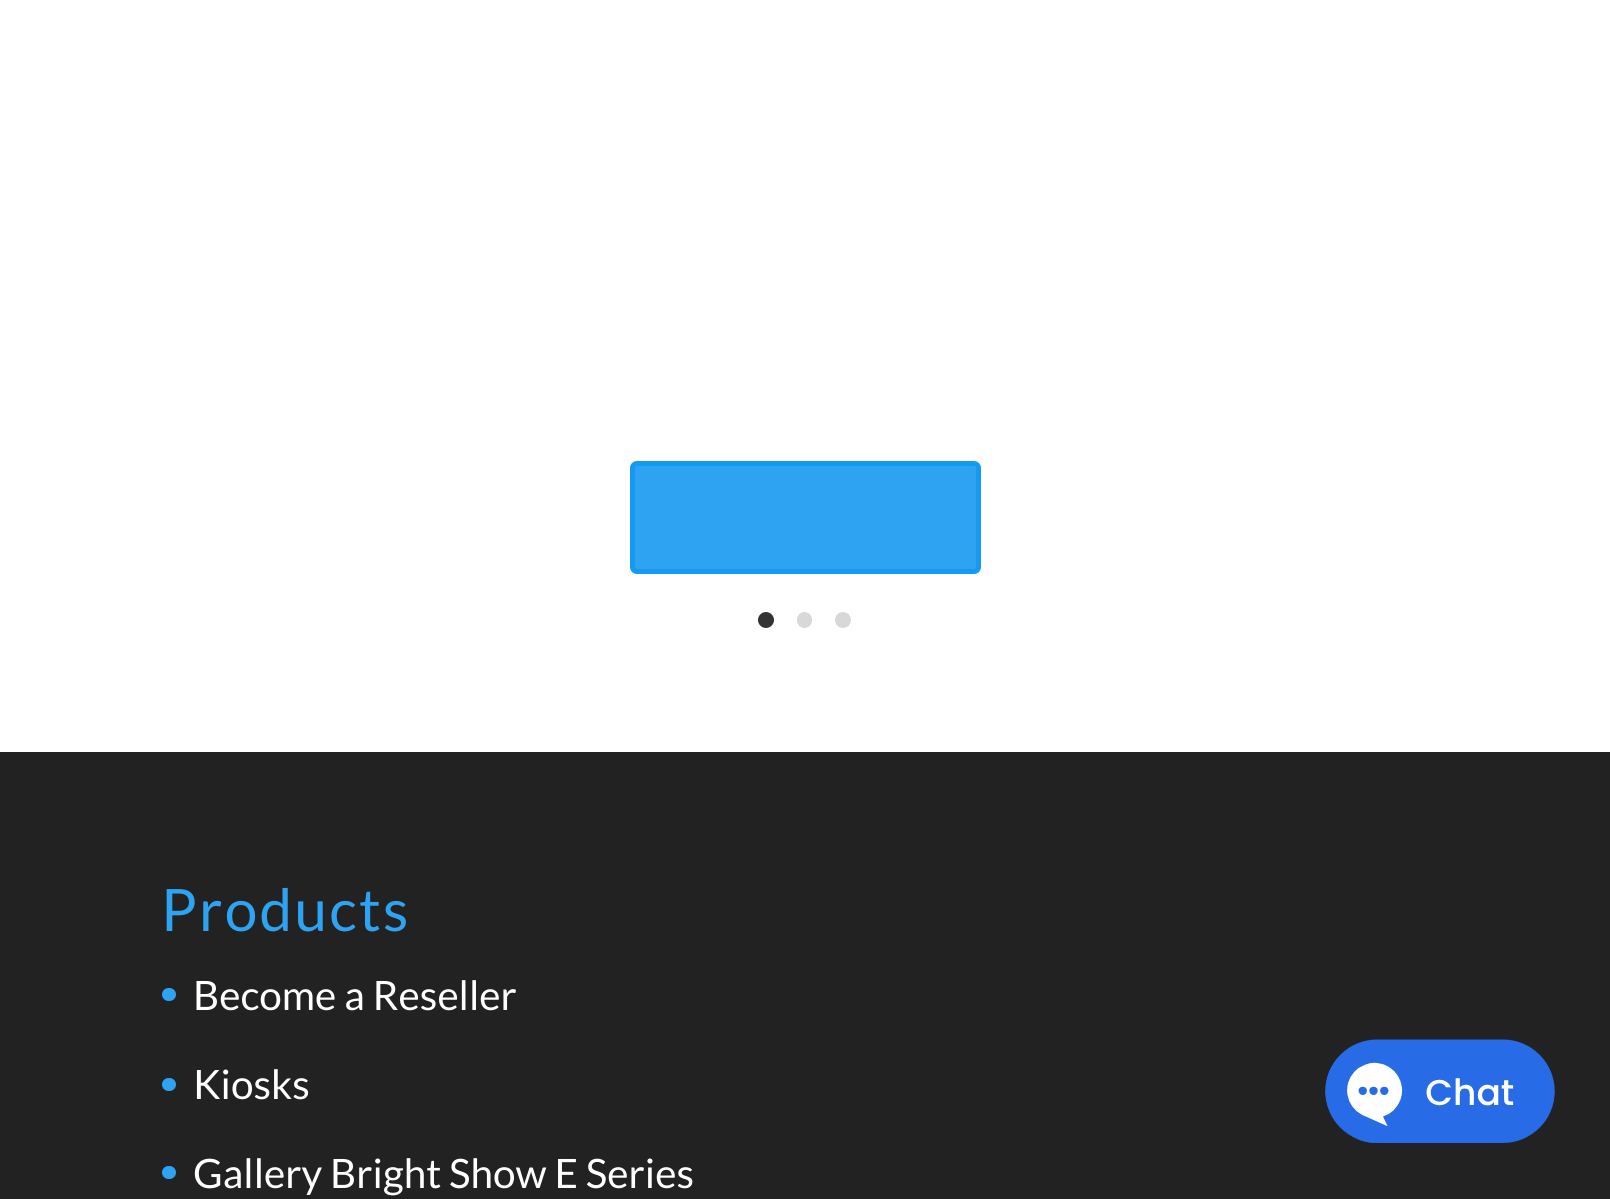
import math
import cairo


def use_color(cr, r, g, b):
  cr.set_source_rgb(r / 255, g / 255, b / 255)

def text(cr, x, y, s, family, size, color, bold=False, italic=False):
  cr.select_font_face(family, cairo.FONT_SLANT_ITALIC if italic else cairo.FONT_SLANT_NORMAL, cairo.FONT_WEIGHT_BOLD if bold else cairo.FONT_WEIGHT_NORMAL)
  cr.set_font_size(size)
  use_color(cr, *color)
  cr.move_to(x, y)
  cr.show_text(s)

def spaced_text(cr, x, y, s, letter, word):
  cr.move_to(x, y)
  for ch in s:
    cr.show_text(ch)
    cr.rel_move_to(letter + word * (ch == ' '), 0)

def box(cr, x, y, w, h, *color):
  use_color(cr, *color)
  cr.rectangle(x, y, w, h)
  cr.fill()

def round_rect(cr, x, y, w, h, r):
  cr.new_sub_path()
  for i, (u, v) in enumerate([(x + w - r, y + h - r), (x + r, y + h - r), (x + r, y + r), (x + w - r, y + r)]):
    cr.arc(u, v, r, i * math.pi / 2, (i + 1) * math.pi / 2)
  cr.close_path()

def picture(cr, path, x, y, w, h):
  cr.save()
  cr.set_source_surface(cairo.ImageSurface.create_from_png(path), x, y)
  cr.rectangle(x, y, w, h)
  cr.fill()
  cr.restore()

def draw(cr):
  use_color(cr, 34, 34, 34)
  cr.paint()
  box(cr, 0, 0, 1610, 752, 255, 255, 255)
  use_color(cr, 46, 163, 242)
  round_rect(cr, 632.5, 463.5, 346, 108, 4.5)
  cr.fill_preserve()
  use_color(cr, 21, 154, 242)
  cr.set_line_width(5)
  cr.stroke()
  use_color(cr, 51, 51, 51)
  cr.arc(766, 620, 8, 0, 2 * math.pi)
  cr.fill()
  use_color(cr, 216, 216, 216)
  round_rect(cr, 797, 612, 15, 16, 7.5)
  cr.fill()
  cr.arc(843, 620, 8, 0, 2 * math.pi)
  cr.fill()
  use_color(cr, 46, 163, 242)
  round_rect(cr, 162, 988, 14, 13, 6.5)
  cr.fill()
  round_rect(cr, 162, 1078, 14, 13, 6.5)
  cr.fill()
  round_rect(cr, 162, 1166, 14, 13, 6.5)
  cr.fill()
  picture(cr, "img_01.png", 1325, 1039, 230, 104)
  cr.select_font_face("Lato")
  cr.set_font_size(58.5)
  spaced_text(cr, 161, 931, "Products", 2.25, 0)
  text(cr, 193, 1010, "Become a Reseller", "Lato", 40.5, (255, 255, 255))
  text(cr, 193, 1099, "Kiosks", "Lato", 40.5, (255, 255, 255))
  text(cr, 193, 1188, "Gallery Bright Show E Series", "Lato", 40.5, (255, 255, 255))


surface = cairo.ImageSurface(cairo.FORMAT_RGB24, 1610, 1199)
cr = cairo.Context(surface)
options = cairo.FontOptions()
options.set_hint_metrics(cairo.HINT_METRICS_OFF)
options.set_hint_style(cairo.HINT_STYLE_NONE)
cr.set_font_options(options)
cr.set_miter_limit(4)
draw(cr)
surface.write_to_png("out.png")
